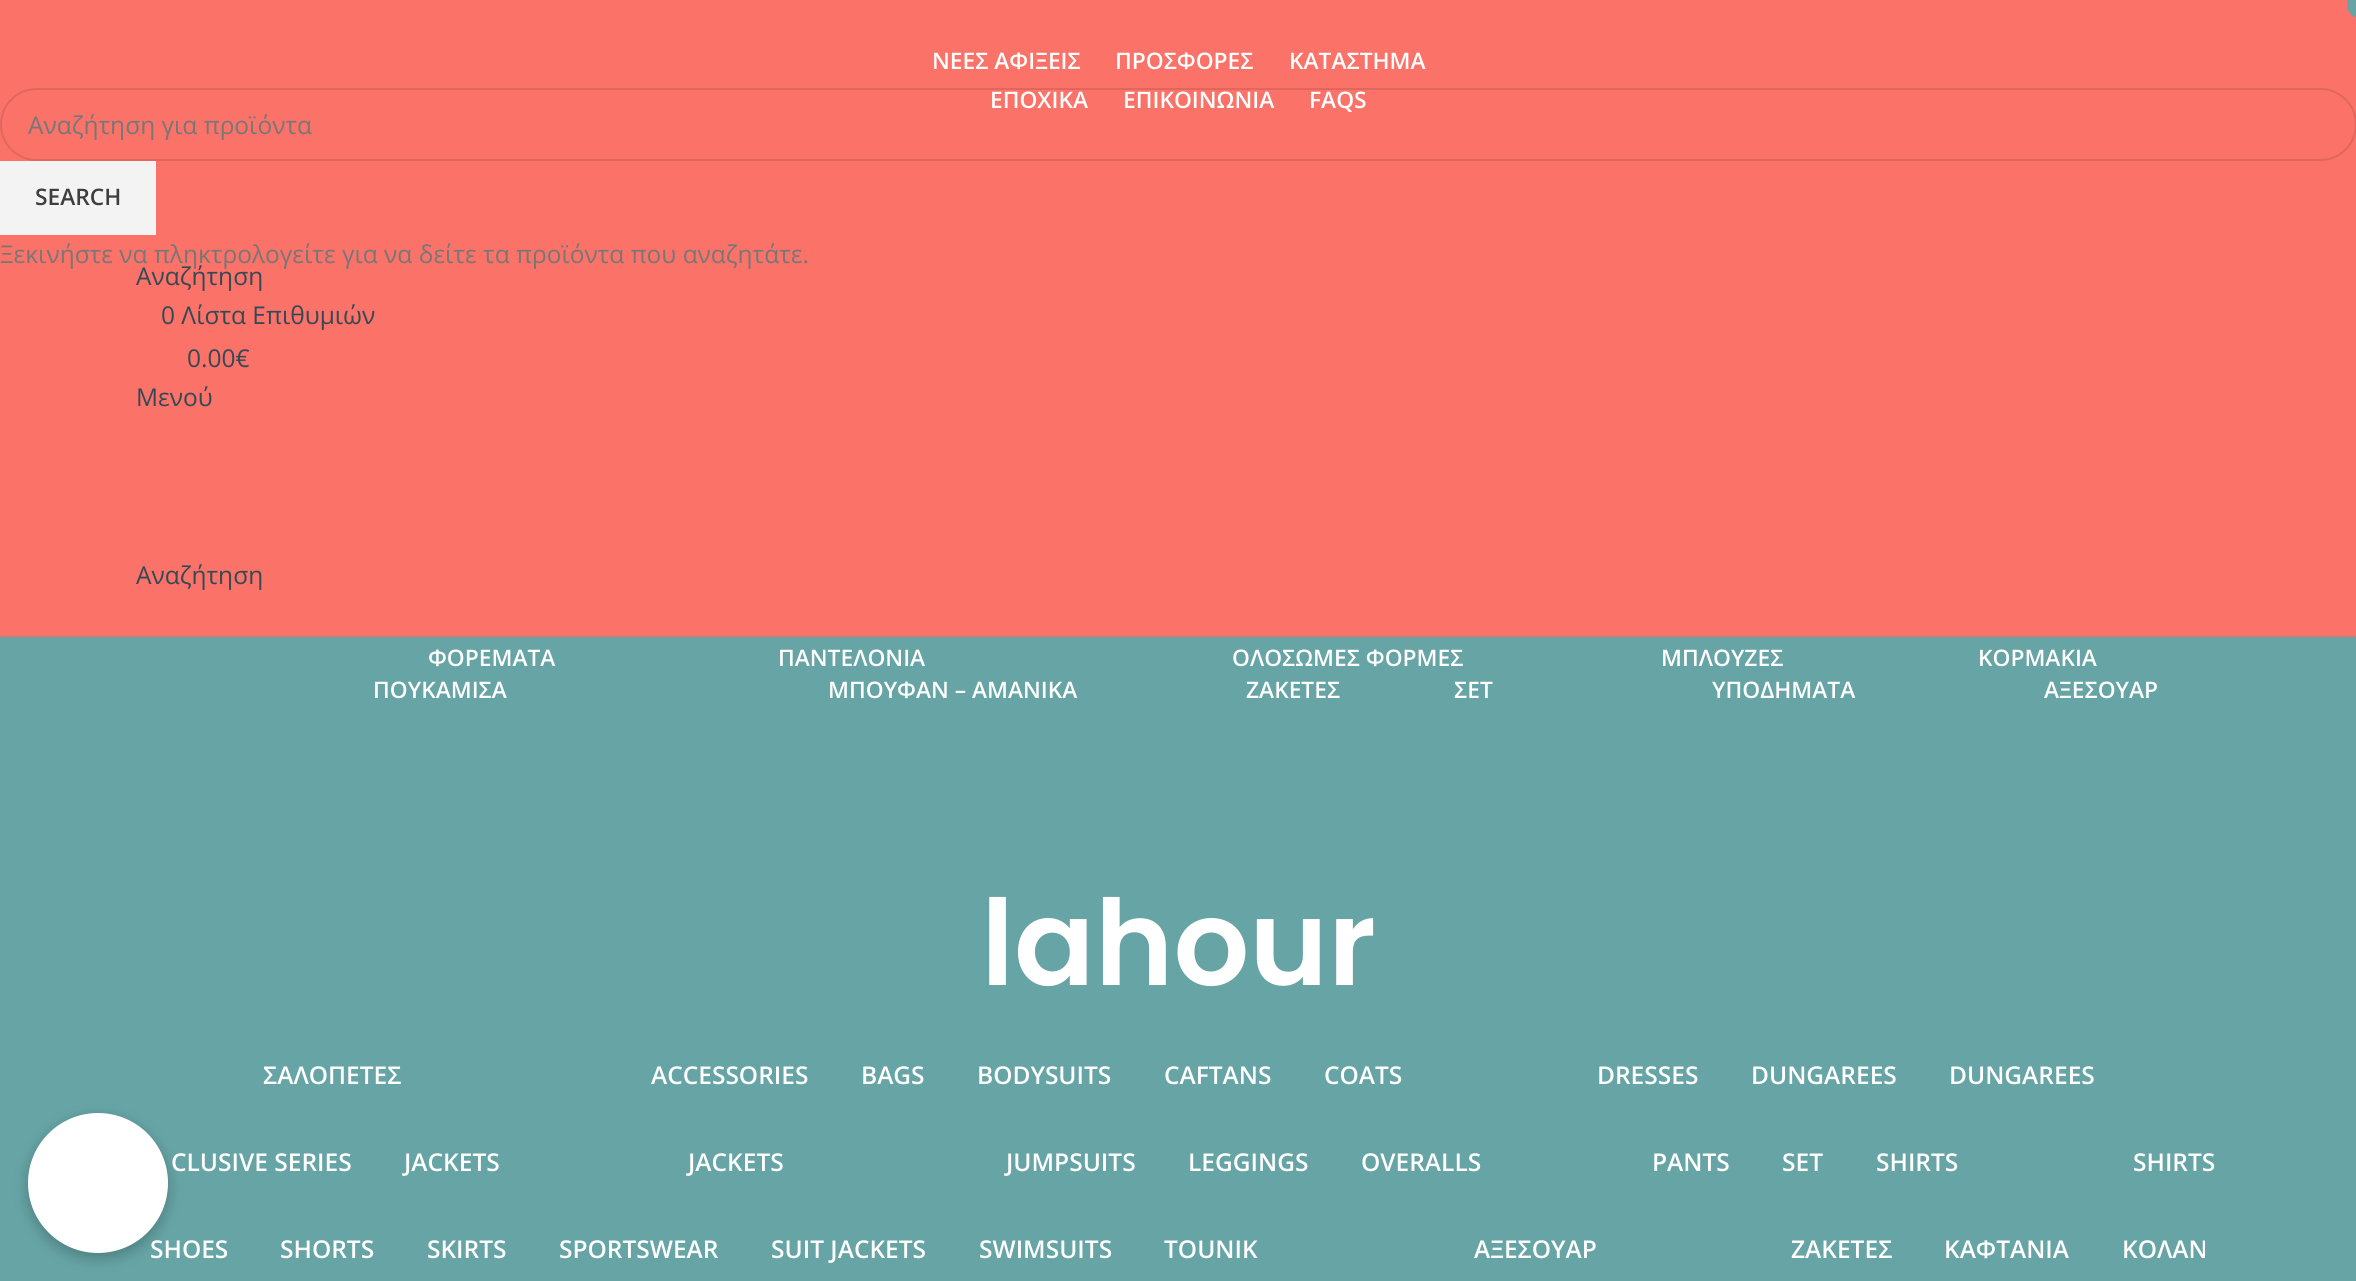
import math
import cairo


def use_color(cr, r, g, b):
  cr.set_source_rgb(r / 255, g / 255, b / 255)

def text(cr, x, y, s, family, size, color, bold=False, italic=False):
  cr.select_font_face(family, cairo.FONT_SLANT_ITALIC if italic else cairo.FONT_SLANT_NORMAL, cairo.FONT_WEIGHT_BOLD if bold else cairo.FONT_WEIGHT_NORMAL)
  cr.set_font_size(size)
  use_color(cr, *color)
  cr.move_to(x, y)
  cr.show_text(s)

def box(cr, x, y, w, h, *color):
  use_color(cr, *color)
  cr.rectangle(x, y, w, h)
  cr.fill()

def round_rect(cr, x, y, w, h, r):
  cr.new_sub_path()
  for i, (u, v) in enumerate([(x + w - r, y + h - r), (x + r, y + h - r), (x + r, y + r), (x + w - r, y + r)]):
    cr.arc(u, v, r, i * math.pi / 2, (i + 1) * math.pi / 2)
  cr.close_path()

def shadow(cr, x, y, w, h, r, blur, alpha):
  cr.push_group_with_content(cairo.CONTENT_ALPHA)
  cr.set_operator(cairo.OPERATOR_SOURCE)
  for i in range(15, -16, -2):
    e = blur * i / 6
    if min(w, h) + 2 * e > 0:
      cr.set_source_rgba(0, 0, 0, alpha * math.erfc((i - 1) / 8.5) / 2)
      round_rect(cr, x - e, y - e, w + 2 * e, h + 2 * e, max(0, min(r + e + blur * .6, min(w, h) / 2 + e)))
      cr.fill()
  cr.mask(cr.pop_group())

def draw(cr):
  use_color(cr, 250, 114, 104)
  cr.paint()
  box(cr, 0, 635, 2356, 2, 226, 117, 109)
  use_color(cr, 102, 164, 165)
  round_rect(cr, 2347, -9, 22, 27, 13)
  cr.fill()
  box(cr, 0, 637, 2356, 644, 102, 164, 165)
  round_rect(cr, 1, 89, 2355, 71, 35.5)
  use_color(cr, 225, 103, 94)
  cr.stroke()
  box(cr, 0, 161, 156, 74, 243, 243, 243)
  use_color(cr, 0, 0, 0)
  shadow(cr, 28, 1118, 140, 140, 70, 7, 0.24)
  use_color(cr, 255, 255, 255)
  cr.arc(98, 1183, 70, 0, 2 * math.pi)
  cr.fill()
  text(cr, 932, 69, "ΝΕΕΣ ΑΦΙΞΕΙΣ", "Open Sans SemiBold", 22.75, (255, 255, 255))
  text(cr, 1115, 69, "ΠΡΟΣΦΟΡΕΣ", "Open Sans SemiBold", 22.75, (255, 255, 255))
  text(cr, 1289, 69, "ΚΑΤΑΣΤΗΜΑ", "Open Sans SemiBold", 22.75, (255, 255, 255))
  text(cr, 990, 108, "ΕΠΟΧΙΚΑ", "Open Sans SemiBold", 22.75, (255, 255, 255))
  text(cr, 1123, 108, "ΕΠΙΚΟΙΝΩΝΙΑ", "Open Sans SemiBold", 22.75, (255, 255, 255))
  text(cr, 1309, 108, "FAQS", "Open Sans SemiBold", 22.75, (255, 255, 255))
  text(cr, 136, 285, "Αναζήτηση", "Open Sans", 24.5, (52, 73, 86))
  text(cr, 161, 324, "0 Λίστα Επιθυμιών", "Open Sans", 24.5, (52, 73, 86))
  text(cr, 187, 367, "0.00€", "Open Sans", 24.5, (52, 73, 86))
  text(cr, 136, 406, "Μενού", "Open Sans", 24.5, (52, 73, 86))
  text(cr, 136, 584, "Αναζήτηση", "Open Sans", 24.5, (52, 73, 86))
  text(cr, 428, 666, "ΦΟΡΕΜΑΤΑ", "Open Sans SemiBold", 22.75, (255, 255, 255))
  text(cr, 778, 666, "ΠΑΝΤΕΛΟΝΙΑ", "Open Sans SemiBold", 22.75, (255, 255, 255))
  text(cr, 1232, 666, "ΟΛΟΣΩΜΕΣ ΦΟΡΜΕΣ", "Open Sans SemiBold", 22.75, (255, 255, 255))
  text(cr, 1661, 666, "ΜΠΛΟΥΖΕΣ", "Open Sans SemiBold", 22.75, (255, 255, 255))
  text(cr, 1978, 666, "ΚΟΡΜΑΚΙΑ", "Open Sans SemiBold", 22.75, (255, 255, 255))
  text(cr, 373, 698, "ΠΟΥΚΑΜΙΣΑ", "Open Sans SemiBold", 22.75, (255, 255, 255))
  text(cr, 828, 698, "ΜΠΟΥΦΑΝ – ΑΜΑΝΙΚΑ", "Open Sans SemiBold", 22.75, (255, 255, 255))
  text(cr, 1246, 698, "ΖΑΚΕΤΕΣ", "Open Sans SemiBold", 22.75, (255, 255, 255))
  text(cr, 1454, 698, "ΣΕΤ", "Open Sans SemiBold", 22.75, (255, 255, 255))
  text(cr, 1712, 698, "ΥΠΟΔΗΜΑΤΑ", "Open Sans SemiBold", 22.75, (255, 255, 255))
  text(cr, 2044, 698, "ΑΞΕΣΟΥΑΡ", "Open Sans SemiBold", 22.75, (255, 255, 255))
  text(cr, 981, 985, "lahour", "Poppins SemiBold", 119, (255, 255, 255))
  text(cr, 263, 1084, "ΣΑΛΟΠΕΤΕΣ", "Open Sans SemiBold", 24.5, (255, 255, 255))
  text(cr, 651, 1084, "ACCESSORIES", "Open Sans SemiBold", 24.5, (255, 255, 255))
  text(cr, 861, 1084, "BAGS", "Open Sans SemiBold", 24.5, (255, 255, 255))
  text(cr, 977, 1084, "BODYSUITS", "Open Sans SemiBold", 24.5, (255, 255, 255))
  text(cr, 1164, 1084, "CAFTANS", "Open Sans SemiBold", 24.5, (255, 255, 255))
  text(cr, 1324, 1084, "COATS", "Open Sans SemiBold", 24.5, (255, 255, 255))
  text(cr, 1597, 1084, "DRESSES", "Open Sans SemiBold", 24.5, (255, 255, 255))
  text(cr, 1751, 1084, "DUNGAREES", "Open Sans SemiBold", 24.5, (255, 255, 255))
  text(cr, 1949, 1084, "DUNGAREES", "Open Sans SemiBold", 24.5, (255, 255, 255))
  text(cr, 171, 1171, "CLUSIVE SERIES", "Open Sans SemiBold", 24.5, (255, 255, 255))
  text(cr, 404, 1171, "JACKETS", "Open Sans SemiBold", 24.5, (255, 255, 255))
  text(cr, 688, 1171, "JACKETS", "Open Sans SemiBold", 24.5, (255, 255, 255))
  text(cr, 1006, 1171, "JUMPSUITS", "Open Sans SemiBold", 24.5, (255, 255, 255))
  text(cr, 1188, 1171, "LEGGINGS", "Open Sans SemiBold", 24.5, (255, 255, 255))
  text(cr, 1361, 1171, "OVERALLS", "Open Sans SemiBold", 24.5, (255, 255, 255))
  text(cr, 1652, 1171, "PANTS", "Open Sans SemiBold", 24.5, (255, 255, 255))
  text(cr, 1782, 1171, "SET", "Open Sans SemiBold", 24.5, (255, 255, 255))
  text(cr, 1876, 1171, "SHIRTS", "Open Sans SemiBold", 24.5, (255, 255, 255))
  text(cr, 2133, 1171, "SHIRTS", "Open Sans SemiBold", 24.5, (255, 255, 255))
  text(cr, 150, 1258, "SHOES", "Open Sans SemiBold", 24.5, (255, 255, 255))
  text(cr, 280, 1258, "SHORTS", "Open Sans SemiBold", 24.5, (255, 255, 255))
  text(cr, 427, 1258, "SKIRTS", "Open Sans SemiBold", 24.5, (255, 255, 255))
  text(cr, 559, 1258, "SPORTSWEAR", "Open Sans SemiBold", 24.5, (255, 255, 255))
  text(cr, 771, 1258, "SUIT JACKETS", "Open Sans SemiBold", 24.5, (255, 255, 255))
  text(cr, 979, 1258, "SWIMSUITS", "Open Sans SemiBold", 24.5, (255, 255, 255))
  text(cr, 1164, 1258, "TOUNIK", "Open Sans SemiBold", 24.5, (255, 255, 255))
  text(cr, 1474, 1258, "ΑΞΕΣΟΥΑΡ", "Open Sans SemiBold", 24.5, (255, 255, 255))
  text(cr, 1791, 1258, "ΖΑΚΕΤΕΣ", "Open Sans SemiBold", 24.5, (255, 255, 255))
  text(cr, 1944, 1258, "ΚΑΦΤΑΝΙΑ", "Open Sans SemiBold", 24.5, (255, 255, 255))
  text(cr, 2122, 1258, "ΚΟΛΑΝ", "Open Sans SemiBold", 24.5, (255, 255, 255))
  text(cr, 28, 134, "Αναζήτηση για προϊόντα", "Open Sans", 24.5, (119, 119, 119))
  text(cr, 35, 205, "SEARCH", "Open Sans SemiBold", 22.75, (62, 62, 62))
  text(cr, 0, 263, "Ξεκινήστε να πληκτρολογείτε για να δείτε τα προϊόντα που αναζητάτε.", "Open Sans", 24.5, (119, 119, 119))


surface = cairo.ImageSurface(cairo.FORMAT_RGB24, 2356, 1281)
cr = cairo.Context(surface)
options = cairo.FontOptions()
options.set_hint_metrics(cairo.HINT_METRICS_OFF)
options.set_hint_style(cairo.HINT_STYLE_NONE)
cr.set_font_options(options)
cr.set_miter_limit(4)
draw(cr)
surface.write_to_png("out.png")
